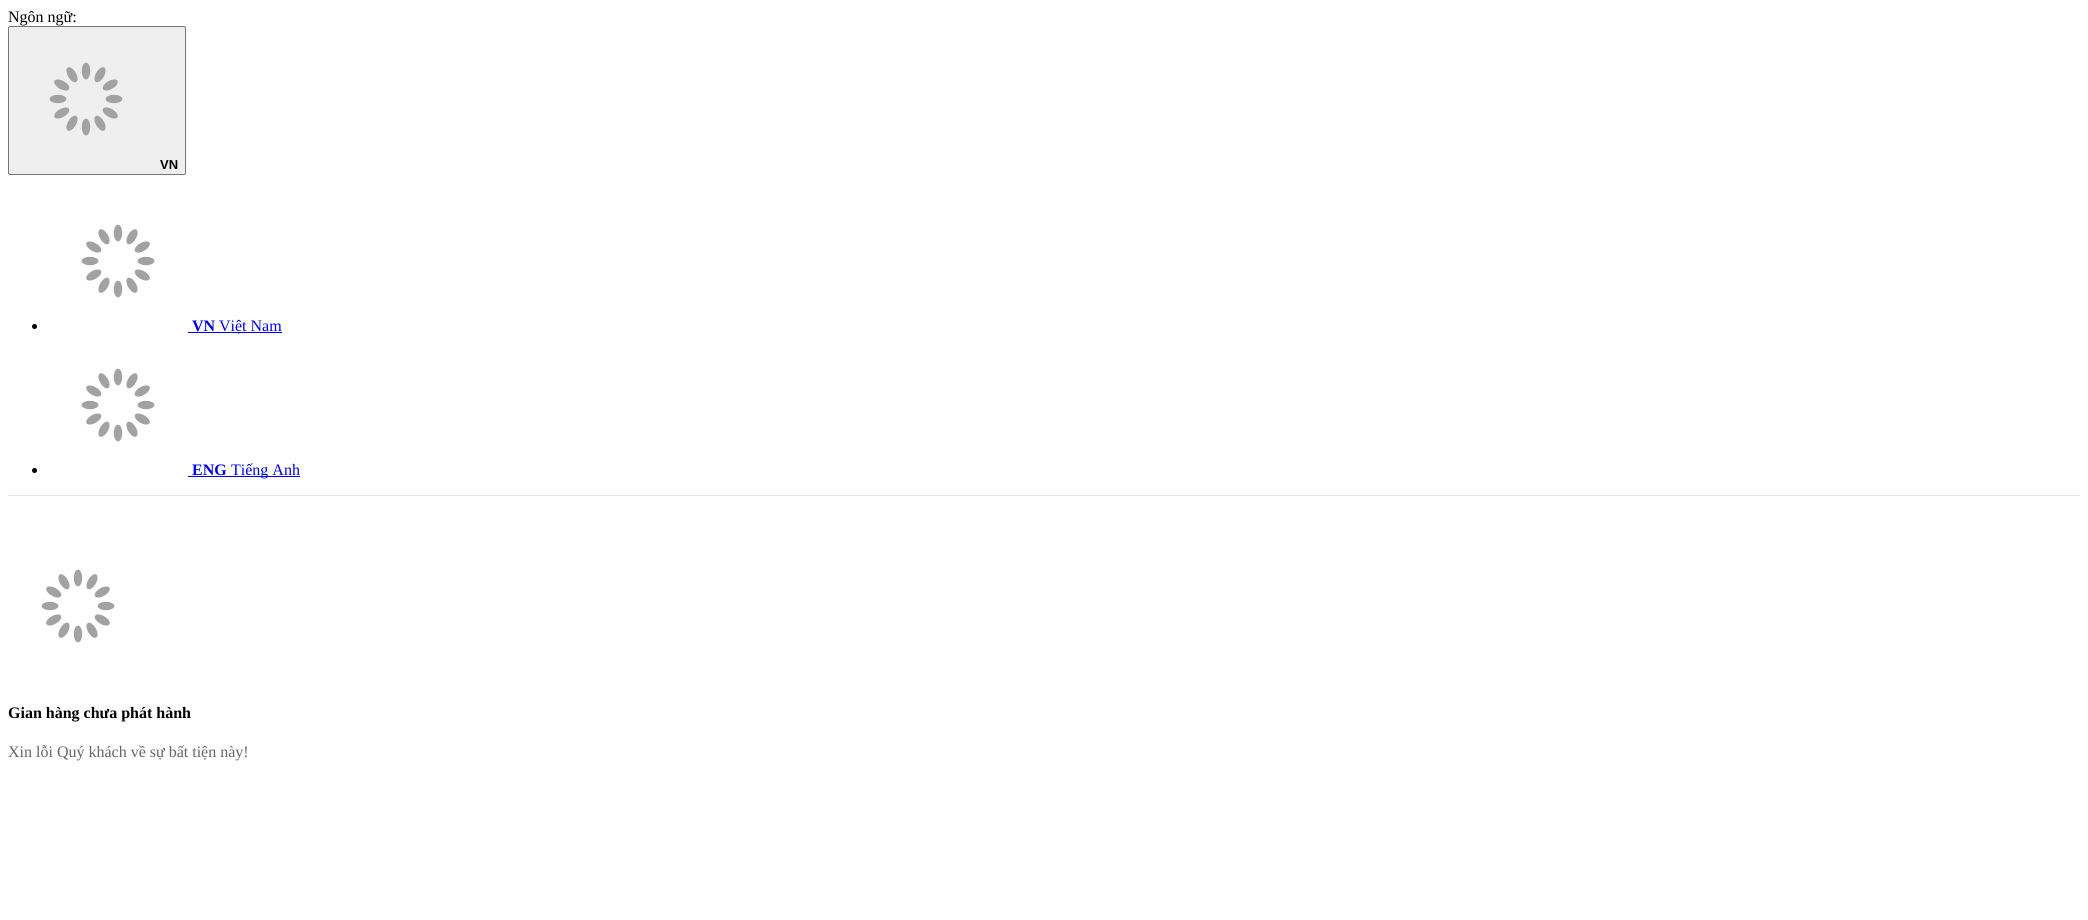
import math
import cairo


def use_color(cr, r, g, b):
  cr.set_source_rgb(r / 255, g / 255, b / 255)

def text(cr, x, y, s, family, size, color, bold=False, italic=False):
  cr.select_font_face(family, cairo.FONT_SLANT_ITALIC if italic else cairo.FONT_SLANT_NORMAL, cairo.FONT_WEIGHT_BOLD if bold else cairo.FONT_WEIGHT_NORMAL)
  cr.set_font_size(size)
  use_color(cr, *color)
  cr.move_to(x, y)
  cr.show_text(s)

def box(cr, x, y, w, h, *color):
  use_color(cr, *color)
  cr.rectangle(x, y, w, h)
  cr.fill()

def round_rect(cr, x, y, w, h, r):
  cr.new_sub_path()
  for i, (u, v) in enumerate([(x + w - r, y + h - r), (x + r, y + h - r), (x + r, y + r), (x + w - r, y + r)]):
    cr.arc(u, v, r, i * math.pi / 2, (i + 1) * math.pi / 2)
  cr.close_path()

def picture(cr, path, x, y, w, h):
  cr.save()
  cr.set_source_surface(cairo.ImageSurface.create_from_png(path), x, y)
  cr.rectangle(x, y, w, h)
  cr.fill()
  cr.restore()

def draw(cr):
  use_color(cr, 255, 255, 255)
  cr.paint()
  use_color(cr, 239, 239, 239)
  round_rect(cr, 8.5, 26.5, 177, 148, 1.5)
  cr.fill_preserve()
  use_color(cr, 118, 118, 118)
  cr.set_line_width(1)
  cr.stroke()
  picture(cr, "img_01.png", 49, 62, 74, 74)
  picture(cr, "img_02.png", 81, 224, 74, 74)
  use_color(cr, 0, 0, 0)
  cr.arc(34.5, 326.5, 2.5, 0, 2 * math.pi)
  cr.fill()
  box(cr, 188, 332, 94, 1, 0, 0, 238)
  picture(cr, "img_02.png", 81, 368, 74, 74)
  use_color(cr, 0, 0, 0)
  cr.arc(34.5, 470.5, 2.5, 0, 2 * math.pi)
  cr.fill()
  box(cr, 188, 476, 112, 1, 0, 0, 238)
  box(cr, 8, 495, 2072, 1, 229, 229, 229)
  picture(cr, "img_02.png", 41, 569, 74, 74)
  text(cr, 8, 22, "Ngôn ngữ:", "Liberation Serif", 16, (0, 0, 0))
  text(cr, 160, 169, "VN", "Liberation Sans", 13, (0, 0, 0), bold=True)
  text(cr, 192, 331, "VN", "Liberation Serif", 16, (0, 0, 238), bold=True)
  text(cr, 219, 331, "Việt Nam", "Liberation Serif", 16, (0, 0, 238))
  text(cr, 192, 475, "ENG", "Liberation Serif", 16, (0, 0, 238), bold=True)
  text(cr, 231, 475, "Tiếng Anh", "Liberation Serif", 16, (0, 0, 238))
  text(cr, 8, 718, "Gian hàng chưa phát hành", "Liberation Serif", 16, (0, 0, 0), bold=True)
  text(cr, 8, 757, "Xin lỗi Quý khách về sự bất tiện này!", "Liberation Serif", 16, (102, 102, 102))


surface = cairo.ImageSurface(cairo.FORMAT_RGB24, 2088, 920)
cr = cairo.Context(surface)
options = cairo.FontOptions()
options.set_hint_metrics(cairo.HINT_METRICS_OFF)
options.set_hint_style(cairo.HINT_STYLE_NONE)
cr.set_font_options(options)
cr.set_miter_limit(4)
draw(cr)
surface.write_to_png("out.png")
